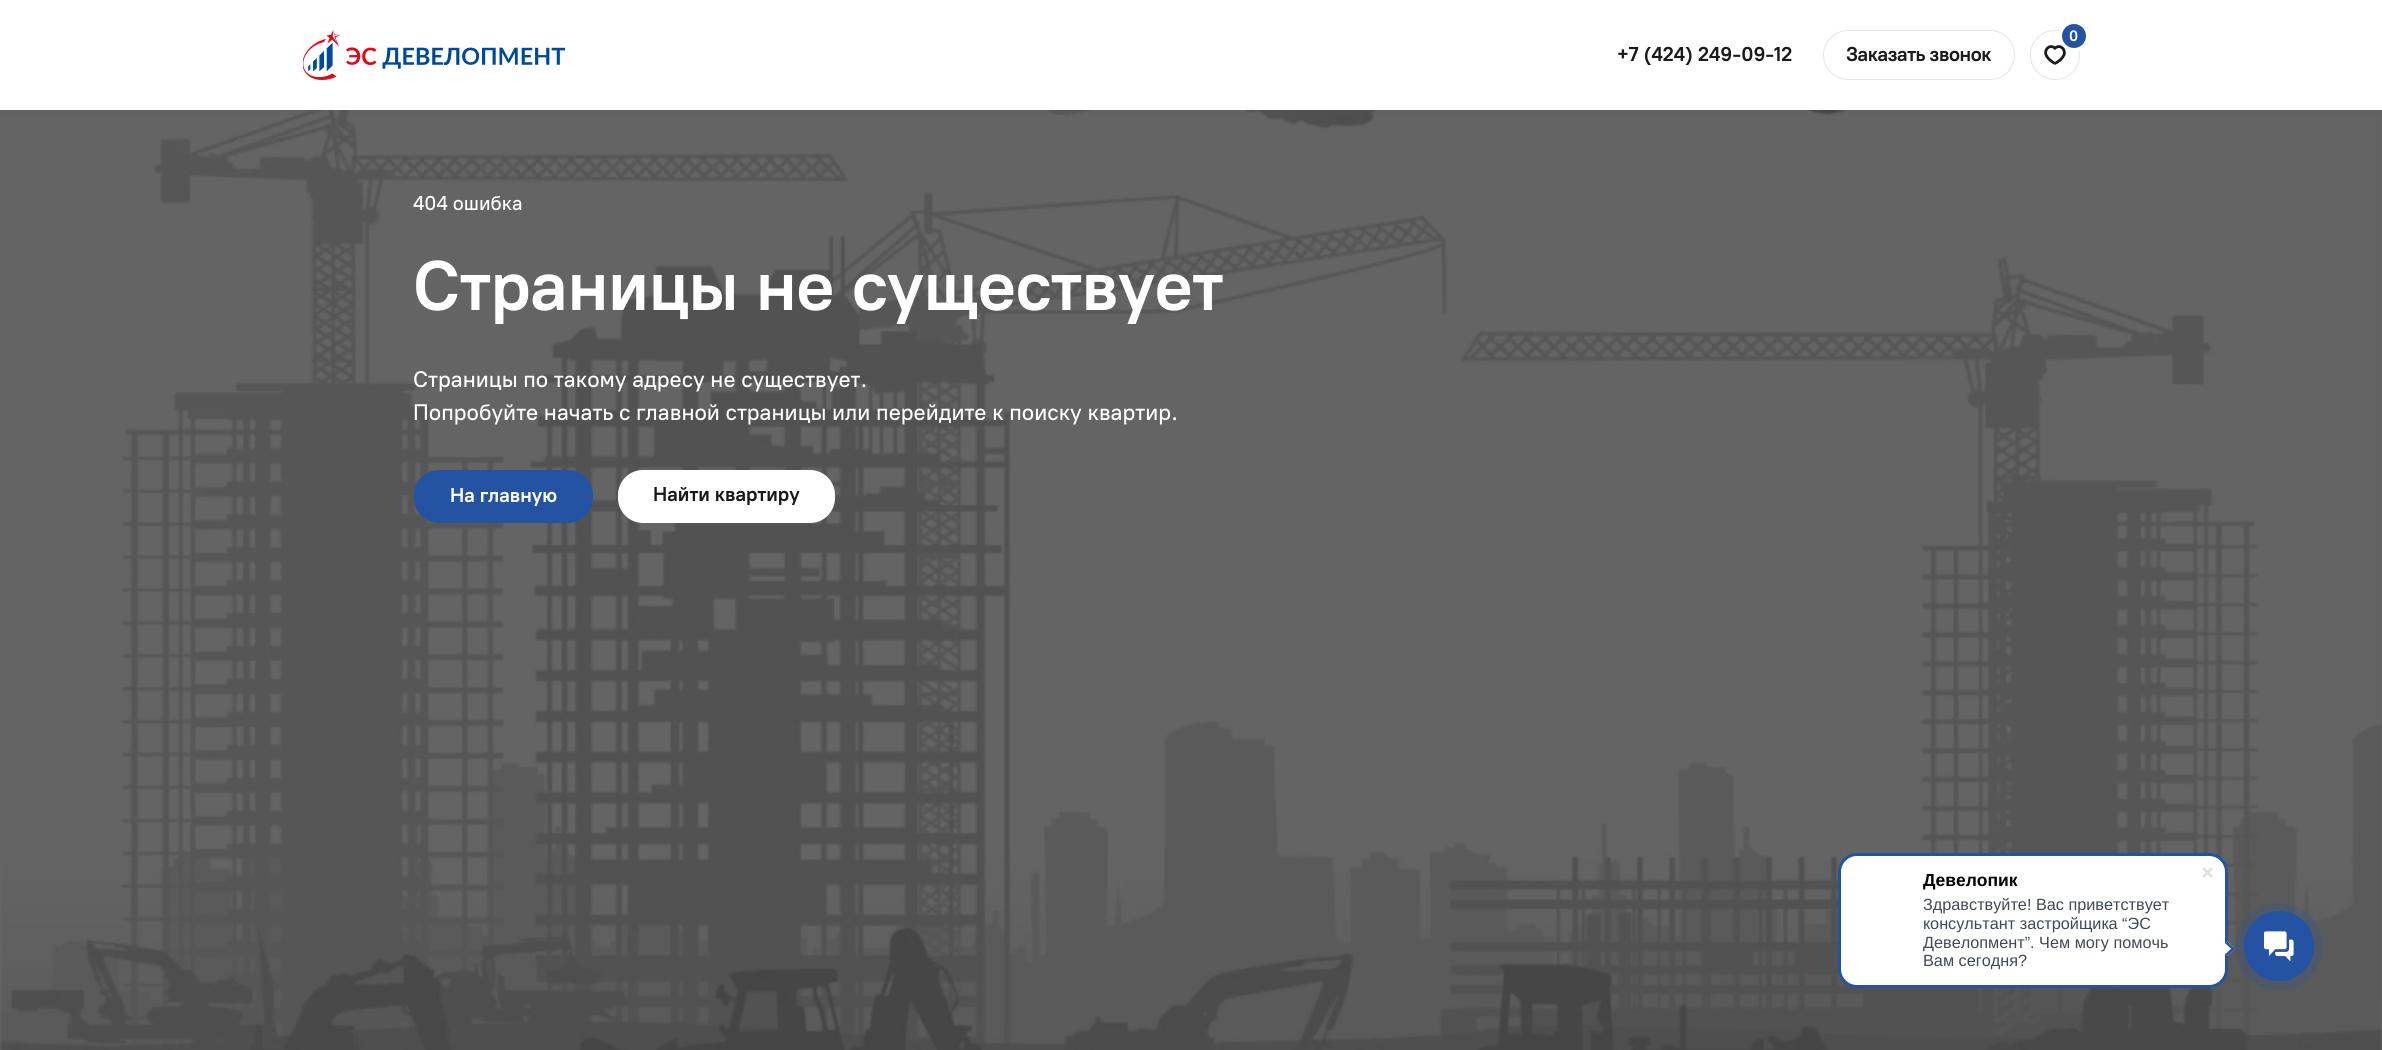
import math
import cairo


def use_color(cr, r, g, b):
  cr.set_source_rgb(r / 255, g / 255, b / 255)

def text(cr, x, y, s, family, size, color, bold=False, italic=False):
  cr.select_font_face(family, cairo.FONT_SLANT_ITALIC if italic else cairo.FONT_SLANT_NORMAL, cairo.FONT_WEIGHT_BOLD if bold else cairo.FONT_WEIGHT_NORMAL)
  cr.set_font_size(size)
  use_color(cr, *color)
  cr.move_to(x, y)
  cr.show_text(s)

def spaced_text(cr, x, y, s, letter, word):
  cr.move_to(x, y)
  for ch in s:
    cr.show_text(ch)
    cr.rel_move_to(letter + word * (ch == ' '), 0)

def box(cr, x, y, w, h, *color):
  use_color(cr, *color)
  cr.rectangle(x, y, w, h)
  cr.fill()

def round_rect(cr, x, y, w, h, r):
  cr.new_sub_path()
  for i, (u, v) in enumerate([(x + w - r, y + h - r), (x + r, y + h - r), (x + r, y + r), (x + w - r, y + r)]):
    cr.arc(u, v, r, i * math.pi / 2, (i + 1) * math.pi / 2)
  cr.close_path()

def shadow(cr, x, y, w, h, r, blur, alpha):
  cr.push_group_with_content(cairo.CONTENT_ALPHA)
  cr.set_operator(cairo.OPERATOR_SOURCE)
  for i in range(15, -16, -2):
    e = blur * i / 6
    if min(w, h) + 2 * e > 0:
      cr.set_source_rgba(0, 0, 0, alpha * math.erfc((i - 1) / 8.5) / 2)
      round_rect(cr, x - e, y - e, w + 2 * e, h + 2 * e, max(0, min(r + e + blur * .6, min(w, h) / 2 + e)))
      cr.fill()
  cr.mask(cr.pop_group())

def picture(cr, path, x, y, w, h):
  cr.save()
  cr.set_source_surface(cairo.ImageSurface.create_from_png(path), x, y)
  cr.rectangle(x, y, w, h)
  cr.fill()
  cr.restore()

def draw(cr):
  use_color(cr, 255, 255, 255)
  cr.paint()
  picture(cr, "img_03.png", 0, 110, 2382, 940)
  use_color(cr, 77, 77, 77)
  shadow(cr, 0, 0, 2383, 110, 0, 6, 0.16)
  box(cr, 0, 0, 2382, 110, 255, 255, 255)
  picture(cr, "img_01.png", 303, 30, 262, 50)
  cr.arc(2055, 55, 24.5, 0, 2 * math.pi)
  use_color(cr, 229, 229, 229)
  cr.set_line_width(1)
  cr.stroke()
  picture(cr, "img_02.png", 2044, 45, 22, 20)
  use_color(cr, 36, 83, 164)
  cr.arc(2074, 36, 13.5, 0, 2 * math.pi)
  cr.fill_preserve()
  use_color(cr, 255, 255, 255)
  cr.set_line_width(3)
  cr.stroke()
  round_rect(cr, 1823.5, 30.5, 191, 49, 24.5)
  use_color(cr, 229, 229, 229)
  cr.set_line_width(1)
  cr.stroke()
  use_color(cr, 36, 83, 164)
  round_rect(cr, 414, 470, 179, 53, 25)
  cr.fill()
  use_color(cr, 255, 255, 255)
  round_rect(cr, 618, 470, 217, 53, 25)
  cr.fill()
  round_rect(cr, 1839.5, 854.5, 387, 132, 17.5)
  cr.fill_preserve()
  use_color(cr, 36, 83, 164)
  cr.set_line_width(3)
  cr.stroke()
  picture(cr, "img_04.png", 2202, 867, 11, 11)
  use_color(cr, 255, 255, 255)
  cr.new_path()
  cr.move_to(2220.5, 948.5)
  cr.line_to(2227.5, 941.5)
  cr.line_to(2234.5, 949)
  cr.line_to(2227.5, 956)
  cr.close_path()
  cr.fill()
  use_color(cr, 36, 83, 164)
  cr.new_path()
  cr.move_to(2225.5, 943.5)
  cr.line_to(2227.5, 941.5)
  cr.line_to(2234.5, 949)
  cr.line_to(2233, 950.5)
  cr.close_path()
  cr.fill()
  cr.new_path()
  cr.move_to(2225.5, 954)
  cr.line_to(2233, 947)
  cr.line_to(2234.5, 949)
  cr.line_to(2227.5, 956)
  cr.close_path()
  cr.fill()
  cr.set_source_rgba(0.141, 0.325, 0.643, 0.2)
  round_rect(cr, 2235, 903, 88, 87, 43.5)
  cr.fill()
  cr.arc(2279, 946, 34.5, 0, 2 * math.pi)
  use_color(cr, 36, 83, 164)
  cr.set_line_width(1)
  cr.stroke()
  cr.arc(2279, 946, 35, 0, 2 * math.pi)
  cr.fill()
  picture(cr, "img_05.png", 2264, 931, 30, 30)
  text(cr, 2069, 41, "0", "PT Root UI", 15, (255, 255, 255), bold=True)
  text(cr, 1617, 61, "+7 (424) 249-09-12", "PT Root UI", 20, (26, 26, 26), bold=True)
  spaced_text(cr, 1846, 61, "Заказать звонок", -0.4, 0)
  text(cr, 413, 210, "404 ошибка", "PT Root UI Medium", 20, (255, 255, 255))
  text(cr, 413, 310, "Страницы не существует", "PT Root UI", 70, (255, 255, 255), bold=True)
  text(cr, 413, 387, "Страницы по такому адресу не существует.", "PT Root UI Medium", 22.5, (255, 255, 255))
  text(cr, 413, 420, "Попробуйте начать с главной страницы или перейдите к поиску квартир.", "PT Root UI Medium", 22.5, (255, 255, 255))
  text(cr, 450, 502, "На главную", "PT Root UI", 20, (255, 255, 255), bold=True)
  text(cr, 653, 501, "Найти квартиру", "PT Root UI", 20, (26, 26, 26), bold=True)
  text(cr, 1923, 886, "Девелопик", "Liberation Sans", 17.5, (0, 0, 0), bold=True)
  text(cr, 1923, 910, "Здравствуйте! Вас приветствует", "Liberation Sans", 16.25, (66, 73, 86))
  text(cr, 1923, 929, "консультант застройщика “ЭС", "Liberation Sans", 16.25, (66, 73, 86))
  text(cr, 1923, 948, "Девелопмент”. Чем могу помочь", "Liberation Sans", 16.25, (66, 73, 86))
  text(cr, 1923, 966, "Вам сегодня?", "Liberation Sans", 16.25, (66, 73, 86))


surface = cairo.ImageSurface(cairo.FORMAT_RGB24, 2382, 1050)
cr = cairo.Context(surface)
options = cairo.FontOptions()
options.set_hint_metrics(cairo.HINT_METRICS_OFF)
options.set_hint_style(cairo.HINT_STYLE_NONE)
cr.set_font_options(options)
cr.set_miter_limit(4)
draw(cr)
surface.write_to_png("out.png")
